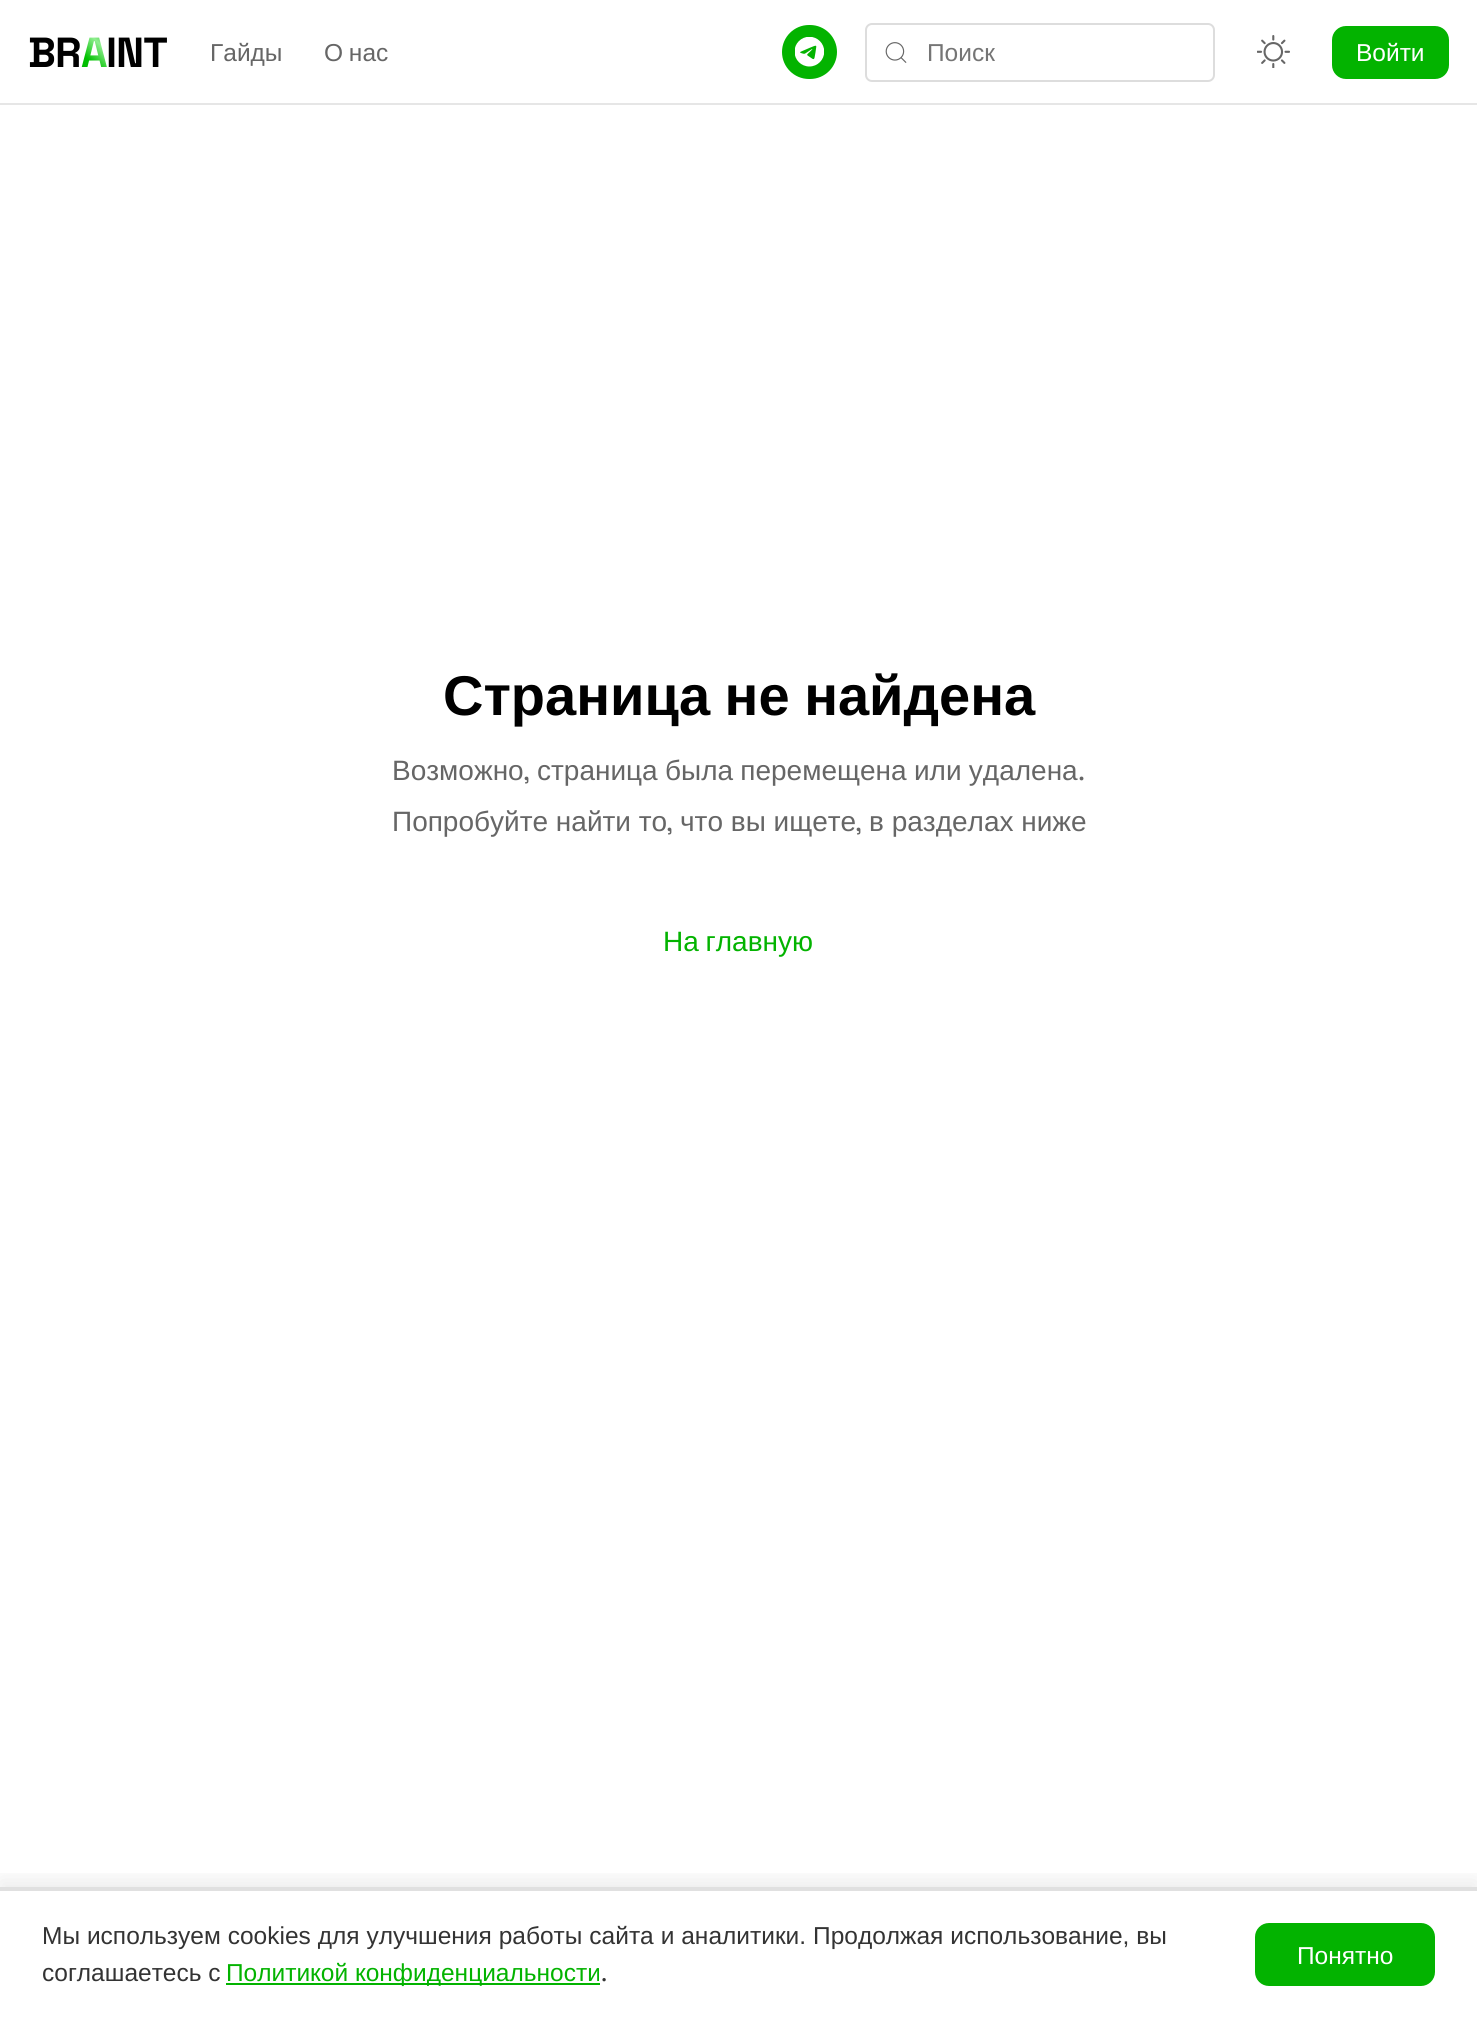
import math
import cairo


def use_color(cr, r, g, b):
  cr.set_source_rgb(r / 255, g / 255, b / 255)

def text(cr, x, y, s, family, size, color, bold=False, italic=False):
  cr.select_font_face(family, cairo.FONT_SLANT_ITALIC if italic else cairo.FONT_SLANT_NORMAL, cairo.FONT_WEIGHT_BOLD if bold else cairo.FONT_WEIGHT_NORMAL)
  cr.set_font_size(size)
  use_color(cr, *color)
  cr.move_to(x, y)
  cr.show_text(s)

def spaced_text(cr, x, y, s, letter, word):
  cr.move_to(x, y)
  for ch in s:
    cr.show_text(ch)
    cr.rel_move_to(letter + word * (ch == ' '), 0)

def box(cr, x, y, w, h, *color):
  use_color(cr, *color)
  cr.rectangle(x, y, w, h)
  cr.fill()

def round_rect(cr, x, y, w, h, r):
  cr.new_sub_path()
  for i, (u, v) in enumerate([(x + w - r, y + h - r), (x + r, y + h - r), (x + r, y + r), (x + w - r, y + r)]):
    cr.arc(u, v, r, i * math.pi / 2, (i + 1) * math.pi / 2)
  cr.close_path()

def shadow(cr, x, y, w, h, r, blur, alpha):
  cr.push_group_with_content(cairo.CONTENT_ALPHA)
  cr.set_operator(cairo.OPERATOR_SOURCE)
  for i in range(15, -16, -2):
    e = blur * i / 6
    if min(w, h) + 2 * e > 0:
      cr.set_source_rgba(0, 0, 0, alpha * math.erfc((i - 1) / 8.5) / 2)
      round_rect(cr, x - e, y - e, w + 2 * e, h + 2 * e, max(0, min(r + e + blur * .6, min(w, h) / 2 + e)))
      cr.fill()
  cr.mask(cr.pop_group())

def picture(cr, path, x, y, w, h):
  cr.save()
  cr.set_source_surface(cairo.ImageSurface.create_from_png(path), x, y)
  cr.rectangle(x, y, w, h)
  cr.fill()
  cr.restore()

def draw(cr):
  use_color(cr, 255, 255, 255)
  cr.paint()
  box(cr, 0, 103, 1477, 2, 230, 230, 230)
  use_color(cr, 3, 179, 0)
  round_rect(cr, 782, 25, 55, 54, 27)
  cr.fill()
  picture(cr, "img_01.png", 795, 37, 29, 30)
  round_rect(cr, 866, 24, 348, 57, 6)
  use_color(cr, 221, 221, 221)
  cr.stroke()
  picture(cr, "img_02.png", 885, 42, 22, 21)
  picture(cr, "img_03.png", 1257, 35, 33, 33)
  use_color(cr, 3, 179, 0)
  round_rect(cr, 1332, 26, 117, 53, 14)
  cr.fill()
  cr.save()
  cr.rectangle(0, 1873, 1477, 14)
  cr.clip()
  use_color(cr, 0, 0, 0)
  shadow(cr, 0, 1880, 1477, 133, 0, 10.5, 0.08)
  cr.restore()
  box(cr, 0, 1887, 1477, 4, 224, 224, 224)
  box(cr, 226, 1983, 374, 2, 3, 179, 0)
  round_rect(cr, 1255, 1923, 180, 63, 14)
  cr.fill()
  cr.select_font_face("Space Grotesk", cairo.FONT_SLANT_NORMAL, cairo.FONT_WEIGHT_BOLD)
  cr.set_font_size(42)
  use_color(cr, 0, 0, 0)
  spaced_text(cr, 28, 67, "BR", -1, 0)
  gradient = cairo.LinearGradient(74, 72, 114, 32)
  gradient.add_color_stop_rgba(0, 0.012, 0.702, 0, 1)
  gradient.add_color_stop_rgba(0.33, 0, 0.753, 0, 1)
  gradient.add_color_stop_rgba(0.67, 0.565, 0.933, 0.565, 1)
  gradient.add_color_stop_rgba(1, 0.012, 0.702, 0, 1)
  cr.set_source(gradient)
  spaced_text(cr, 81, 67, "A", -1, 0)
  use_color(cr, 0, 0, 0)
  spaced_text(cr, 106, 67, "INT", -1, 0)
  text(cr, 210, 61, "Гайды", "Liberation Sans", 24.5, (102, 102, 102))
  spaced_text(cr, 324, 61, "О нас", 0, -1)
  text(cr, 927, 61, "Поиск", "Liberation Sans", 24.5, (117, 117, 117))
  text(cr, 1356, 61, "Войти", "Liberation Sans", 24.5, (255, 255, 255))
  cr.select_font_face("Liberation Sans", cairo.FONT_SLANT_NORMAL, cairo.FONT_WEIGHT_BOLD)
  cr.set_font_size(56)
  use_color(cr, 0, 0, 0)
  spaced_text(cr, 443, 715, "Страница не найдена", 0, -1)
  text(cr, 392, 780, "Возможно", "Liberation Sans", 28, (102, 102, 102))
  text(cr, 523, 780, ",", "Space Grotesk", 28, (102, 102, 102))
  cr.select_font_face("Liberation Sans")
  spaced_text(cr, 537, 780, "страница была перемещена или удалена", 0, -0.5)
  text(cr, 1078, 780, ".", "Space Grotesk", 28, (102, 102, 102))
  text(cr, 392, 831, "Попробуйте найти то", "Liberation Sans", 28, (102, 102, 102))
  text(cr, 666, 831, ",", "Space Grotesk", 28, (102, 102, 102))
  text(cr, 680, 831, "что вы ищете", "Liberation Sans", 28, (102, 102, 102))
  text(cr, 855, 831, ",", "Space Grotesk", 28, (102, 102, 102))
  text(cr, 869, 831, "в разделах ниже", "Liberation Sans", 28, (102, 102, 102))
  use_color(cr, 3, 179, 0)
  spaced_text(cr, 663, 951, "На главную", 0, -1)
  cr.set_font_size(24.5)
  use_color(cr, 51, 51, 51)
  spaced_text(cr, 42, 1944, "Мы используем cookies для улучшения работы сайта и аналитики. Продолжая использование, вы", 0, 0.1)
  text(cr, 42, 1981, "соглашаетесь с", "Liberation Sans", 24.5, (51, 51, 51))
  text(cr, 226, 1981, "Политикой конфиденциальности", "Liberation Sans", 24.5, (3, 179, 0))
  text(cr, 601, 1981, ".", "Space Grotesk", 24.5, (51, 51, 51))
  text(cr, 1297, 1964, "Понятно", "Liberation Sans", 24.5, (255, 255, 255))


surface = cairo.ImageSurface(cairo.FORMAT_RGB24, 1477, 2018)
cr = cairo.Context(surface)
options = cairo.FontOptions()
options.set_hint_metrics(cairo.HINT_METRICS_OFF)
options.set_hint_style(cairo.HINT_STYLE_NONE)
cr.set_font_options(options)
cr.set_miter_limit(4)
draw(cr)
surface.write_to_png("out.png")
